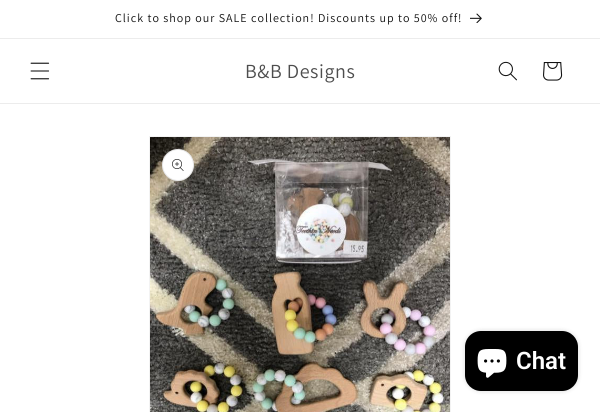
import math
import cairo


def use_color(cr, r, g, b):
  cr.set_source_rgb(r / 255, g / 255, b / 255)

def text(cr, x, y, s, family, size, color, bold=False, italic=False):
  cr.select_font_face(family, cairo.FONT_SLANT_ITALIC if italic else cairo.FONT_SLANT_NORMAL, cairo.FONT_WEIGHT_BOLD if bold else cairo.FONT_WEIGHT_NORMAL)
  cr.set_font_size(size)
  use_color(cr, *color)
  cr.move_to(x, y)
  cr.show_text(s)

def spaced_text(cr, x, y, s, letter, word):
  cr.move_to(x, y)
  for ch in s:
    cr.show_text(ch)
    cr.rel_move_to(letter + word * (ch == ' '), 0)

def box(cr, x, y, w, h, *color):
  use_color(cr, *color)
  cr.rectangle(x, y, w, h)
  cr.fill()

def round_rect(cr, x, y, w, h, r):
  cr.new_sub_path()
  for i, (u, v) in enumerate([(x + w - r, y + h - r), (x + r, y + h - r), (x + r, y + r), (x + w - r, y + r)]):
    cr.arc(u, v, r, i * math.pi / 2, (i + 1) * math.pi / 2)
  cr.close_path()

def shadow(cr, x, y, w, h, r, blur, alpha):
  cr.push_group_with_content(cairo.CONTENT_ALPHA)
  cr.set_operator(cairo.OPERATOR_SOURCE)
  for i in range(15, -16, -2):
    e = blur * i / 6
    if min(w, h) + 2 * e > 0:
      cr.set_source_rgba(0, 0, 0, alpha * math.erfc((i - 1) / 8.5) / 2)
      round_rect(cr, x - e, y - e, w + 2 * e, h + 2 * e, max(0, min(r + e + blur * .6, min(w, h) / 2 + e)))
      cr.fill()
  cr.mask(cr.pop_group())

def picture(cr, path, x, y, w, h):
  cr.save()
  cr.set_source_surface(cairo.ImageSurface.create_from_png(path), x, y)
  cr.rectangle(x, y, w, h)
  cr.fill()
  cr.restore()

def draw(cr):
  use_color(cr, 255, 255, 255)
  cr.paint()
  box(cr, 0, 38, 600, 1, 236, 236, 236)
  picture(cr, "img_01.png", 470, 13, 12, 10)
  box(cr, 0, 103, 600, 1, 236, 236, 236)
  picture(cr, "img_02.png", 30, 62, 20, 18)
  picture(cr, "img_03.png", 498, 61, 19, 20)
  picture(cr, "img_04.png", 543, 62, 20, 19)
  cr.rectangle(149.5, 136.5, 301, 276)
  use_color(cr, 243, 243, 243)
  cr.set_line_width(1)
  cr.stroke()
  picture(cr, "img_05.png", 150, 137, 300, 275)
  use_color(cr, 255, 255, 255)
  cr.arc(178, 165, 16, 0, 2 * math.pi)
  cr.fill()
  cr.arc(178, 165, 15.5, 0, 2 * math.pi)
  cr.set_source_rgba(0.071, 0.071, 0.071, 0.1)
  cr.stroke()
  picture(cr, "img_06.png", 172, 159, 12, 12)
  use_color(cr, 0, 0, 0)
  shadow(cr, 465, 331, 113, 60, 16, 2.5, 0.15)
  use_color(cr, 0, 0, 0)
  round_rect(cr, 465, 331, 113, 60, 16)
  cr.fill()
  picture(cr, "img_07.png", 477, 349, 30, 29)
  cr.select_font_face("Assistant")
  cr.set_font_size(12)
  use_color(cr, 18, 18, 18)
  spaced_text(cr, 115, 22, "Click to shop our SALE collection! Discounts up to 50% off!", 1, 0)
  cr.set_font_size(20)
  use_color(cr, 77, 77, 77)
  spaced_text(cr, 245, 78, "B&B Designs", 0.6, 0)
  text(cr, 516, 369, "Chat", "Roboto SemiBold", 24, (255, 255, 255))


surface = cairo.ImageSurface(cairo.FORMAT_RGB24, 600, 412)
cr = cairo.Context(surface)
options = cairo.FontOptions()
options.set_hint_metrics(cairo.HINT_METRICS_OFF)
options.set_hint_style(cairo.HINT_STYLE_NONE)
cr.set_font_options(options)
cr.set_miter_limit(4)
draw(cr)
surface.write_to_png("out.png")
